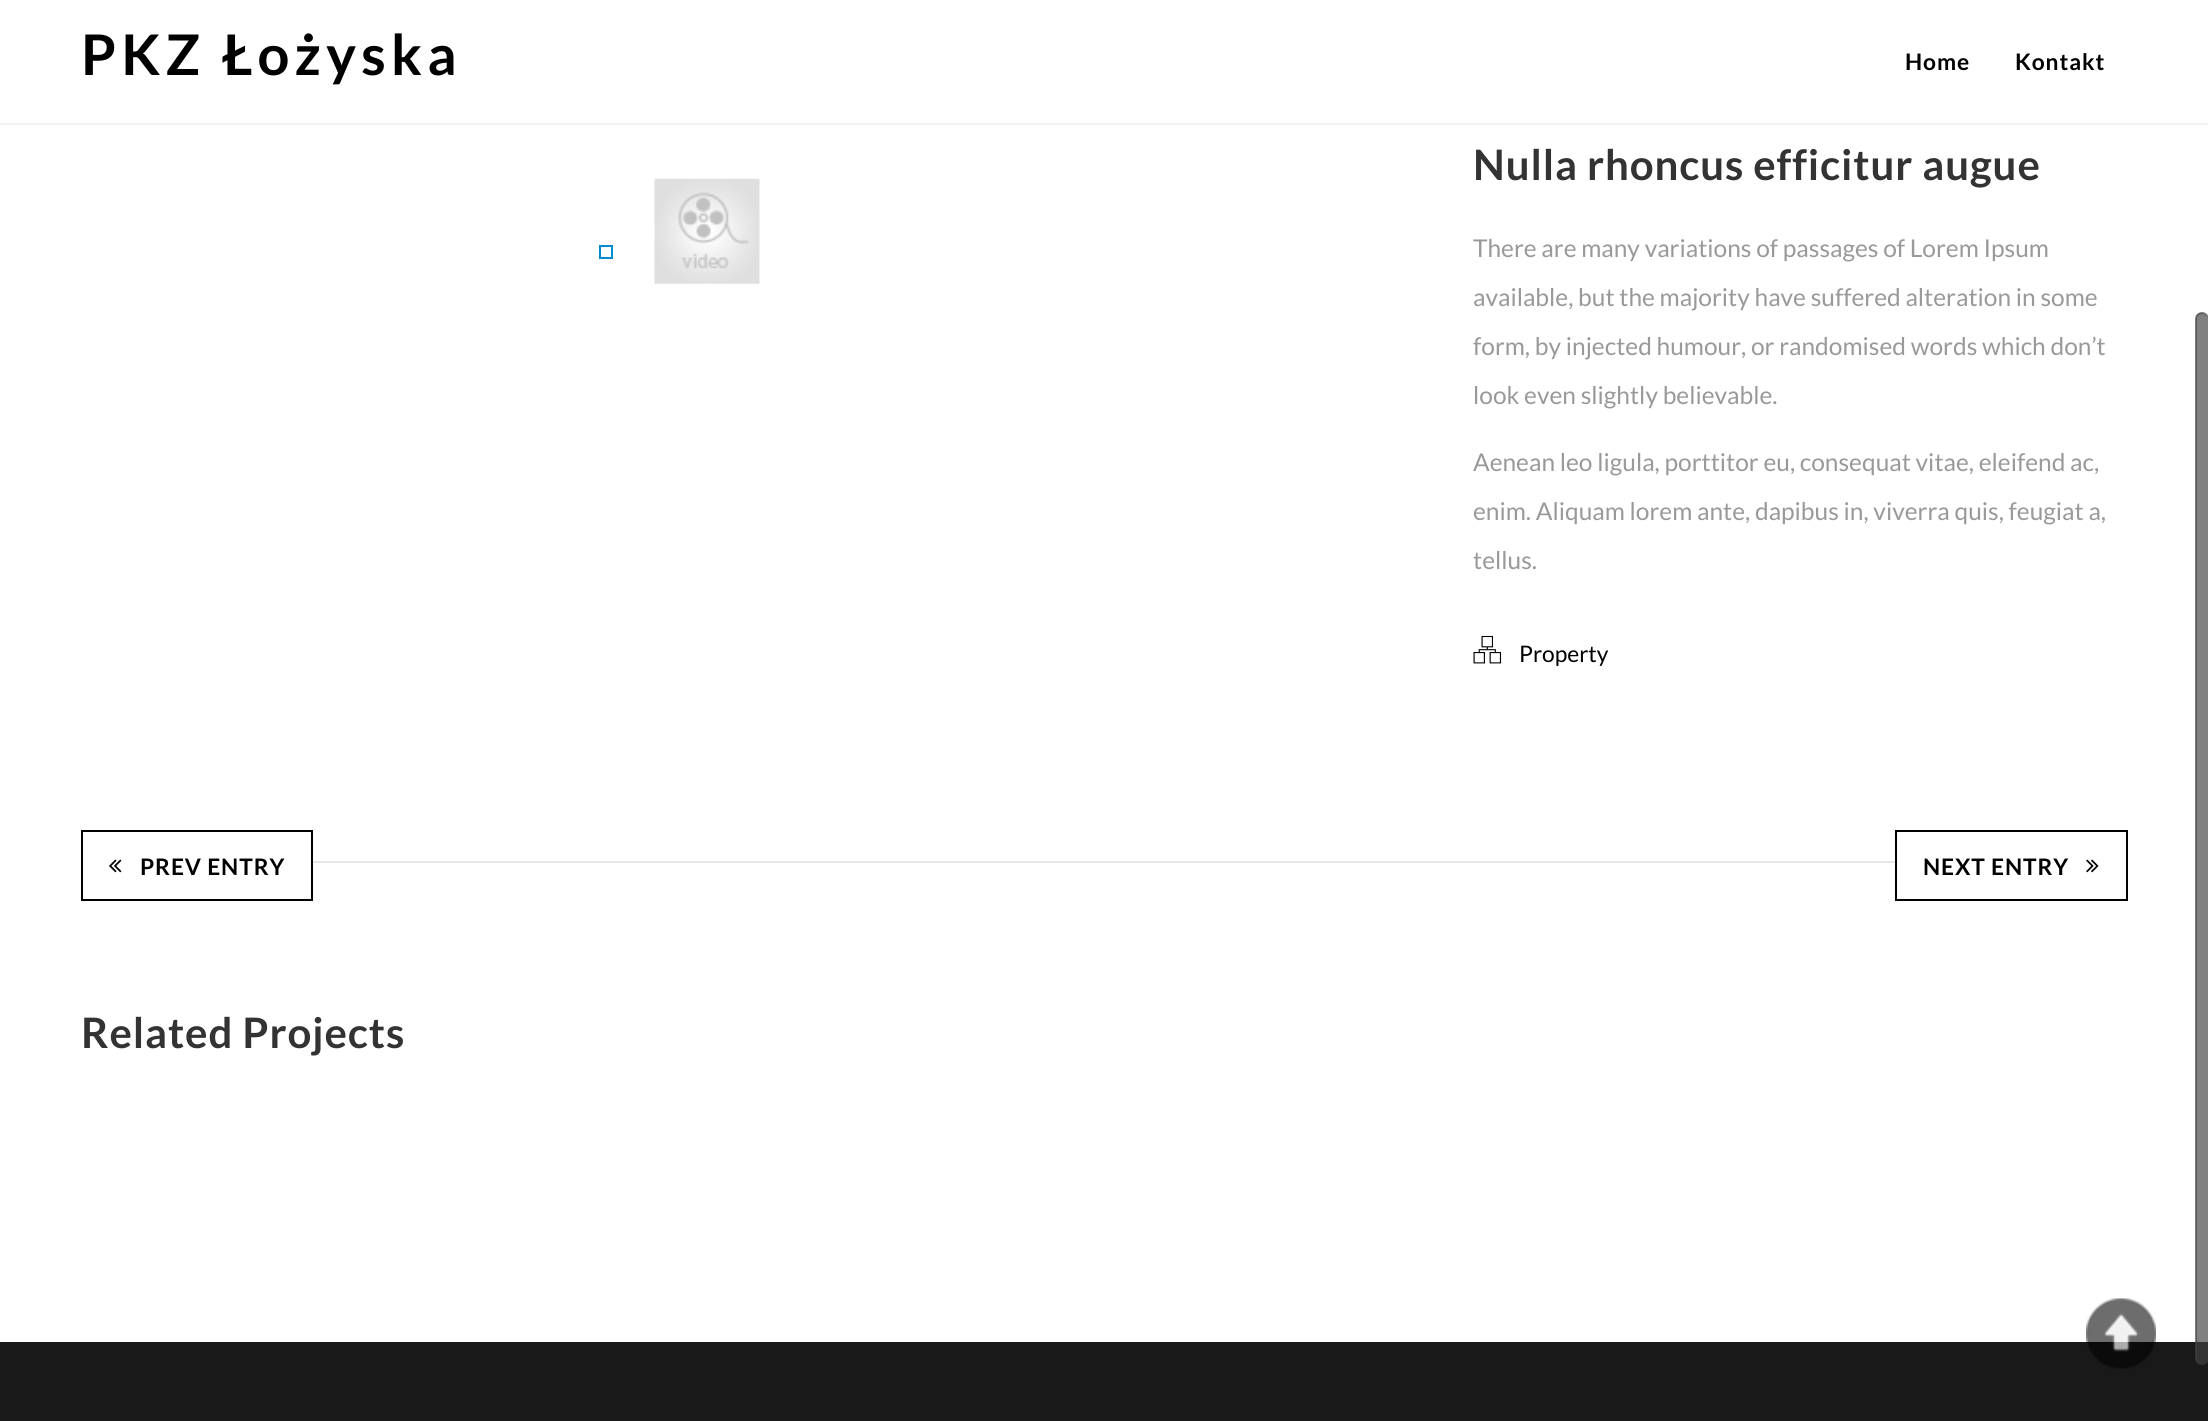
import math
import cairo


def use_color(cr, r, g, b):
  cr.set_source_rgb(r / 255, g / 255, b / 255)

def text(cr, x, y, s, family, size, color, bold=False, italic=False):
  cr.select_font_face(family, cairo.FONT_SLANT_ITALIC if italic else cairo.FONT_SLANT_NORMAL, cairo.FONT_WEIGHT_BOLD if bold else cairo.FONT_WEIGHT_NORMAL)
  cr.set_font_size(size)
  use_color(cr, *color)
  cr.move_to(x, y)
  cr.show_text(s)

def spaced_text(cr, x, y, s, letter, word):
  cr.move_to(x, y)
  for ch in s:
    cr.show_text(ch)
    cr.rel_move_to(letter + word * (ch == ' '), 0)

def box(cr, x, y, w, h, *color):
  use_color(cr, *color)
  cr.rectangle(x, y, w, h)
  cr.fill()

def round_rect(cr, x, y, w, h, r):
  cr.new_sub_path()
  for i, (u, v) in enumerate([(x + w - r, y + h - r), (x + r, y + h - r), (x + r, y + r), (x + w - r, y + r)]):
    cr.arc(u, v, r, i * math.pi / 2, (i + 1) * math.pi / 2)
  cr.close_path()

def picture(cr, path, x, y, w, h):
  cr.save()
  cr.set_source_surface(cairo.ImageSurface.create_from_png(path), x, y)
  cr.rectangle(x, y, w, h)
  cr.fill()
  cr.restore()

def draw(cr):
  use_color(cr, 255, 255, 255)
  cr.paint()
  box(cr, 0, 123, 2208, 2, 242, 242, 242)
  cr.rectangle(600, 246, 12, 12)
  use_color(cr, 0, 139, 211)
  cr.stroke()
  picture(cr, "img_01.png", 654, 178, 106, 106)
  picture(cr, "img_02.png", 1473, 635, 29, 29)
  cr.rectangle(82, 831, 230, 69)
  use_color(cr, 0, 0, 0)
  cr.stroke()
  picture(cr, "img_03.png", 109, 859, 13, 14)
  box(cr, 313, 861, 1582, 2, 230, 230, 230)
  cr.rectangle(1896, 831, 231, 69)
  use_color(cr, 0, 0, 0)
  cr.stroke()
  picture(cr, "img_04.png", 2086, 859, 13, 14)
  box(cr, 0, 1342, 2208, 79, 25, 25, 25)
  picture(cr, "img_05.png", 2086, 1298, 70, 71)
  cr.set_source_rgba(0.259, 0.259, 0.259, 0.67)
  round_rect(cr, 2196, 313, 11, 1050, 5.5)
  cr.fill()
  round_rect(cr, 2196, 313, 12, 1051, 6)
  cr.stroke()
  cr.select_font_face("Lato", cairo.FONT_SLANT_NORMAL, cairo.FONT_WEIGHT_BOLD)
  cr.set_font_size(56)
  use_color(cr, 0, 0, 0)
  spaced_text(cr, 81, 75, "PKZ Łożyska", 5.25, 0)
  cr.set_font_size(22.75)
  spaced_text(cr, 1905, 70, "Home", 0.9, 0)
  spaced_text(cr, 2015, 70, "Kontakt", 0.9, 0)
  cr.set_font_size(42)
  use_color(cr, 51, 51, 51)
  spaced_text(cr, 1473, 180, "Nulla rhoncus efficitur augue", 0.9, 0)
  text(cr, 1473, 257, "There are many variations of passages of Lorem Ipsum", "Lato", 24.5, (153, 153, 153))
  text(cr, 1473, 306, "available, but the majority have suffered alteration in some", "Lato", 24.5, (153, 153, 153))
  text(cr, 1473, 355, "form, by injected humour, or randomised words which don’t", "Lato", 24.5, (153, 153, 153))
  text(cr, 1473, 404, "look even slightly believable.", "Lato", 24.5, (153, 153, 153))
  text(cr, 1473, 471, "Aenean leo ligula, porttitor eu, consequat vitae, eleifend ac,", "Lato", 24.5, (153, 153, 153))
  text(cr, 1473, 520, "enim. Aliquam lorem ante, dapibus in, viverra quis, feugiat a,", "Lato", 24.5, (153, 153, 153))
  text(cr, 1473, 569, "tellus.", "Lato", 24.5, (153, 153, 153))
  text(cr, 1519, 662, "Property", "Lato", 22.75, (0, 0, 0))
  cr.select_font_face("Lato", cairo.FONT_SLANT_NORMAL, cairo.FONT_WEIGHT_BOLD)
  spaced_text(cr, 140, 875, "PREV ENTRY", 0.9, 0)
  spaced_text(cr, 1923, 875, "NEXT ENTRY", 0.9, 0)
  cr.set_font_size(42)
  use_color(cr, 51, 51, 51)
  spaced_text(cr, 81, 1048, "Related Projects", 0.9, 0)


surface = cairo.ImageSurface(cairo.FORMAT_RGB24, 2208, 1421)
cr = cairo.Context(surface)
options = cairo.FontOptions()
options.set_hint_metrics(cairo.HINT_METRICS_OFF)
options.set_hint_style(cairo.HINT_STYLE_NONE)
cr.set_font_options(options)
cr.set_miter_limit(4)
draw(cr)
surface.write_to_png("out.png")
